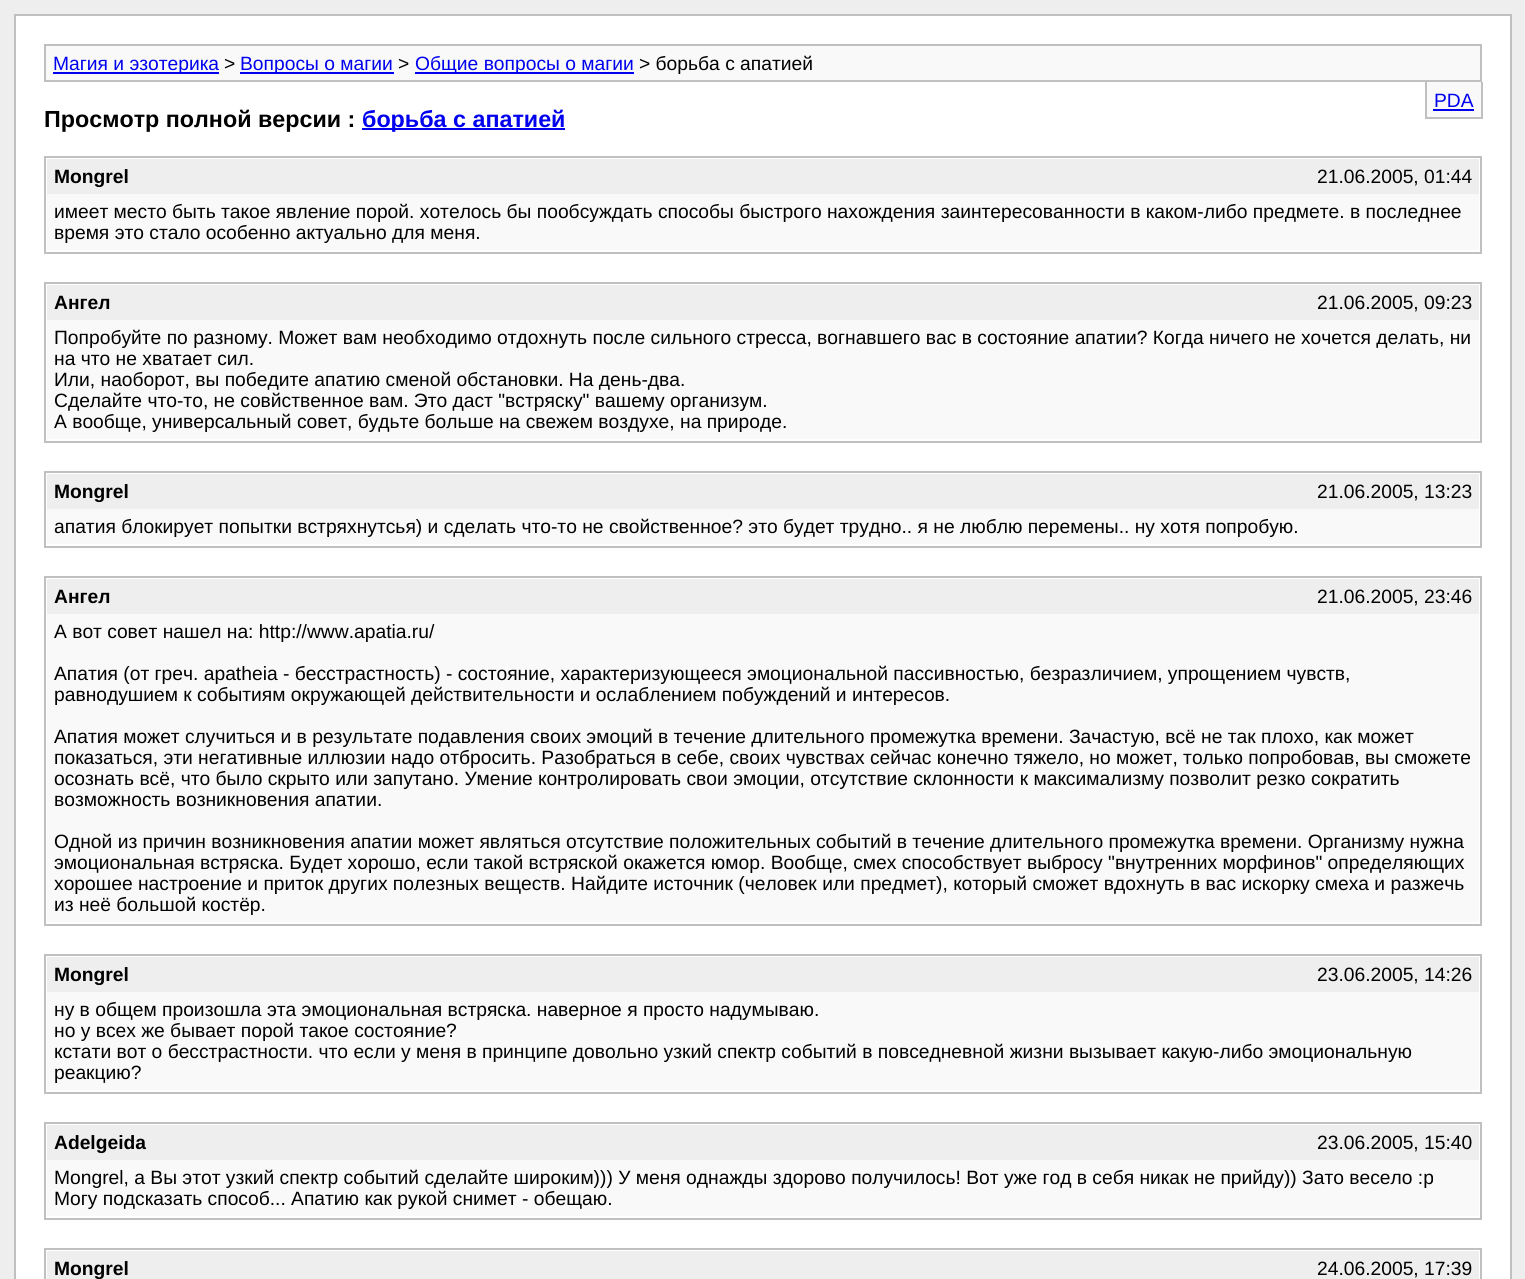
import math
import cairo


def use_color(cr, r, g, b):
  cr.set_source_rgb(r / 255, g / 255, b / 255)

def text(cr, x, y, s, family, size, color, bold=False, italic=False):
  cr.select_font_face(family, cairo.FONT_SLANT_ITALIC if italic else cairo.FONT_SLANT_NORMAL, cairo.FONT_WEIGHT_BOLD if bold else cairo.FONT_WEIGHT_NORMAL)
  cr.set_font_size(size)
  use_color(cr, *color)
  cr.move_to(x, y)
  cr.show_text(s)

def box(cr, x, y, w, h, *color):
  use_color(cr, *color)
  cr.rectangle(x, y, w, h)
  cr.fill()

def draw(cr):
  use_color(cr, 238, 238, 238)
  cr.paint()
  use_color(cr, 255, 255, 255)
  cr.rectangle(15, 15, 1496, 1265)
  cr.fill_preserve()
  use_color(cr, 192, 192, 192)
  cr.stroke()
  use_color(cr, 249, 249, 249)
  cr.rectangle(45, 45, 1436, 36)
  cr.fill_preserve()
  use_color(cr, 192, 192, 192)
  cr.stroke()
  box(cr, 53, 72, 166, 2, 0, 0, 238)
  box(cr, 240, 72, 154, 2, 0, 0, 238)
  box(cr, 415, 72, 219, 2, 0, 0, 238)
  box(cr, 1427, 82, 54, 35, 249, 249, 249)
  box(cr, 1481, 82, 2, 37, 192, 192, 192)
  box(cr, 1425, 117, 57, 2, 192, 192, 192)
  box(cr, 1425, 82, 2, 37, 192, 192, 192)
  box(cr, 1433, 109, 41, 2, 0, 0, 238)
  box(cr, 362, 128, 203, 2, 0, 0, 238)
  cr.rectangle(45, 157, 1436, 96)
  use_color(cr, 192, 192, 192)
  cr.stroke()
  box(cr, 47, 159, 1432, 35, 238, 238, 238)
  box(cr, 47, 194, 1432, 56, 249, 249, 249)
  cr.rectangle(45, 283, 1436, 159)
  use_color(cr, 192, 192, 192)
  cr.stroke()
  box(cr, 47, 285, 1432, 35, 238, 238, 238)
  box(cr, 47, 320, 1432, 119, 249, 249, 249)
  cr.rectangle(45, 472, 1436, 75)
  use_color(cr, 192, 192, 192)
  cr.stroke()
  box(cr, 47, 474, 1432, 35, 238, 238, 238)
  box(cr, 47, 509, 1432, 35, 249, 249, 249)
  cr.rectangle(45, 577, 1436, 348)
  use_color(cr, 192, 192, 192)
  cr.stroke()
  box(cr, 47, 579, 1432, 35, 238, 238, 238)
  box(cr, 47, 614, 1432, 308, 249, 249, 249)
  cr.rectangle(45, 955, 1436, 138)
  use_color(cr, 192, 192, 192)
  cr.stroke()
  box(cr, 47, 957, 1432, 35, 238, 238, 238)
  box(cr, 47, 992, 1432, 98, 249, 249, 249)
  cr.rectangle(45, 1123, 1436, 96)
  use_color(cr, 192, 192, 192)
  cr.stroke()
  box(cr, 47, 1125, 1432, 35, 238, 238, 238)
  box(cr, 47, 1160, 1432, 56, 249, 249, 249)
  cr.rectangle(45, 1249, 1436, 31)
  use_color(cr, 192, 192, 192)
  cr.stroke()
  box(cr, 47, 1251, 1432, 28, 238, 238, 238)
  text(cr, 53, 70, "Магия и эзотерика", "Liberation Sans", 19.25, (0, 0, 238))
  text(cr, 224, 70, ">", "Liberation Sans", 19.25, (0, 0, 0))
  text(cr, 240, 70, "Вопросы о магии", "Liberation Sans", 19.25, (0, 0, 238))
  text(cr, 398, 70, ">", "Liberation Sans", 19.25, (0, 0, 0))
  text(cr, 415, 70, "Общие вопросы о магии", "Liberation Sans", 19.25, (0, 0, 238))
  text(cr, 639, 70, "> борьба с апатией", "Liberation Sans", 19.25, (0, 0, 0))
  text(cr, 1434, 107, "PDA", "Liberation Sans", 19.25, (0, 0, 238))
  text(cr, 44, 127, "Просмотр полной версии :", "Liberation Sans", 23.3, (0, 0, 0), bold=True)
  text(cr, 362, 127, "борьба с апатией", "Liberation Sans", 23.3, (0, 0, 238), bold=True)
  text(cr, 54, 183, "Mongrel", "Liberation Sans", 19.25, (0, 0, 0), bold=True)
  text(cr, 1317, 183, "21.06.2005, 01:44", "Liberation Sans", 19.25, (0, 0, 0))
  text(cr, 54, 218, "имеет место быть такое явление порой. хотелось бы пообсуждать способы быстрого нахождения заинтересованности в каком-либо предмете. в последнее", "Liberation Sans", 19.25, (0, 0, 0))
  text(cr, 54, 239, "время это стало особенно актуально для меня.", "Liberation Sans", 19.25, (0, 0, 0))
  text(cr, 54, 309, "Ангел", "Liberation Sans", 19.25, (0, 0, 0), bold=True)
  text(cr, 1317, 309, "21.06.2005, 09:23", "Liberation Sans", 19.25, (0, 0, 0))
  text(cr, 54, 344, "Попробуйте по разному. Может вам необходимо отдохнуть после сильного стресса, вогнавшего вас в состояние апатии? Когда ничего не хочется делать, ни", "Liberation Sans", 19.25, (0, 0, 0))
  text(cr, 54, 365, "на что не хватает сил.", "Liberation Sans", 19.25, (0, 0, 0))
  text(cr, 54, 386, "Или, наоборот, вы победите апатию сменой обстановки. На день-два.", "Liberation Sans", 19.25, (0, 0, 0))
  text(cr, 54, 407, "Сделайте что-то, не совйственное вам. Это даст \"встряску\" вашему организум.", "Liberation Sans", 19.25, (0, 0, 0))
  text(cr, 54, 428, "А вообще, универсальный совет, будьте больше на свежем воздухе, на природе.", "Liberation Sans", 19.25, (0, 0, 0))
  text(cr, 54, 498, "Mongrel", "Liberation Sans", 19.25, (0, 0, 0), bold=True)
  text(cr, 1317, 498, "21.06.2005, 13:23", "Liberation Sans", 19.25, (0, 0, 0))
  text(cr, 54, 533, "апатия блокирует попытки встряхнутсья) и сделать что-то не свойственное? это будет трудно.. я не люблю перемены.. ну хотя попробую.", "Liberation Sans", 19.25, (0, 0, 0))
  text(cr, 54, 603, "Ангел", "Liberation Sans", 19.25, (0, 0, 0), bold=True)
  text(cr, 1317, 603, "21.06.2005, 23:46", "Liberation Sans", 19.25, (0, 0, 0))
  text(cr, 54, 638, "А вот совет нашел на: http://www.apatia.ru/", "Liberation Sans", 19.25, (0, 0, 0))
  text(cr, 54, 680, "Апатия (от греч. apatheia - бесстрастность) - состояние, характеризующееся эмоциональной пассивностью, безразличием, упрощением чувств,", "Liberation Sans", 19.25, (0, 0, 0))
  text(cr, 54, 701, "равнодушием к событиям окружающей действительности и ослаблением побуждений и интересов.", "Liberation Sans", 19.25, (0, 0, 0))
  text(cr, 54, 743, "Апатия может случиться и в результате подавления своих эмоций в течение длительного промежутка времени. Зачастую, всё не так плохо, как может", "Liberation Sans", 19.25, (0, 0, 0))
  text(cr, 54, 764, "показаться, эти негативные иллюзии надо отбросить. Разобраться в себе, своих чувствах сейчас конечно тяжело, но может, только попробовав, вы сможете", "Liberation Sans", 19.25, (0, 0, 0))
  text(cr, 54, 785, "осознать всё, что было скрыто или запутано. Умение контролировать свои эмоции, отсутствие склонности к максимализму позволит резко сократить", "Liberation Sans", 19.25, (0, 0, 0))
  text(cr, 54, 806, "возможность возникновения апатии.", "Liberation Sans", 19.25, (0, 0, 0))
  text(cr, 54, 848, "Одной из причин возникновения апатии может являться отсутствие положительных событий в течение длительного промежутка времени. Организму нужна", "Liberation Sans", 19.25, (0, 0, 0))
  text(cr, 54, 869, "эмоциональная встряска. Будет хорошо, если такой встряской окажется юмор. Вообще, смех способствует выбросу \"внутренних морфинов\" определяющих", "Liberation Sans", 19.25, (0, 0, 0))
  text(cr, 54, 890, "хорошее настроение и приток других полезных веществ. Найдите источник (человек или предмет), который сможет вдохнуть в вас искорку смеха и разжечь", "Liberation Sans", 19.25, (0, 0, 0))
  text(cr, 54, 911, "из неё большой костёр.", "Liberation Sans", 19.25, (0, 0, 0))
  text(cr, 54, 981, "Mongrel", "Liberation Sans", 19.25, (0, 0, 0), bold=True)
  text(cr, 1317, 981, "23.06.2005, 14:26", "Liberation Sans", 19.25, (0, 0, 0))
  text(cr, 54, 1016, "ну в общем произошла эта эмоциональная встряска. наверное я просто надумываю.", "Liberation Sans", 19.25, (0, 0, 0))
  text(cr, 54, 1037, "но у всех же бывает порой такое состояние?", "Liberation Sans", 19.25, (0, 0, 0))
  text(cr, 54, 1058, "кстати вот о бесстрастности. что если у меня в принципе довольно узкий спектр событий в повседневной жизни вызывает какую-либо эмоциональную", "Liberation Sans", 19.25, (0, 0, 0))
  text(cr, 54, 1079, "реакцию?", "Liberation Sans", 19.25, (0, 0, 0))
  text(cr, 54, 1149, "Adelgeida", "Liberation Sans", 19.25, (0, 0, 0), bold=True)
  text(cr, 1317, 1149, "23.06.2005, 15:40", "Liberation Sans", 19.25, (0, 0, 0))
  text(cr, 54, 1184, "Mongrel, а Вы этот узкий спектр событий сделайте широким))) У меня однажды здорово получилось! Вот уже год в себя никак не прийду)) Зато весело :p", "Liberation Sans", 19.25, (0, 0, 0))
  text(cr, 54, 1205, "Могу подсказать способ... Апатию как рукой снимет - обещаю.", "Liberation Sans", 19.25, (0, 0, 0))
  text(cr, 54, 1275, "Mongrel", "Liberation Sans", 19.25, (0, 0, 0), bold=True)
  text(cr, 1317, 1275, "24.06.2005, 17:39", "Liberation Sans", 19.25, (0, 0, 0))


surface = cairo.ImageSurface(cairo.FORMAT_RGB24, 1525, 1279)
cr = cairo.Context(surface)
options = cairo.FontOptions()
options.set_hint_metrics(cairo.HINT_METRICS_OFF)
options.set_hint_style(cairo.HINT_STYLE_NONE)
cr.set_font_options(options)
cr.set_miter_limit(4)
draw(cr)
surface.write_to_png("out.png")
